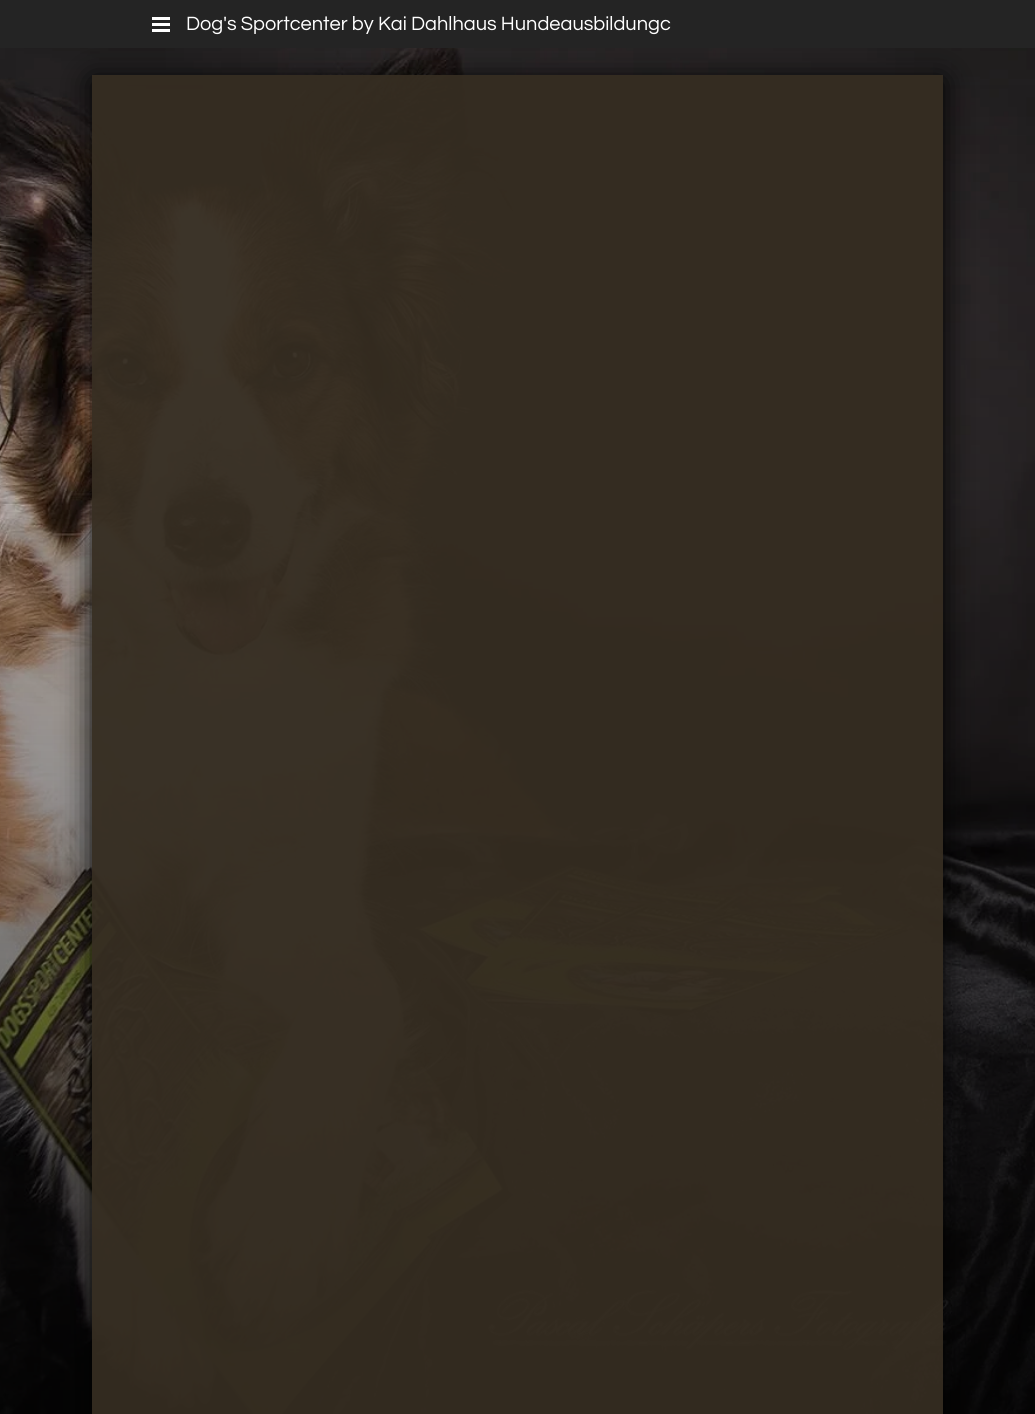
import math
import cairo


def use_color(cr, r, g, b):
  cr.set_source_rgb(r / 255, g / 255, b / 255)

def text(cr, x, y, s, family, size, color, bold=False, italic=False):
  cr.select_font_face(family, cairo.FONT_SLANT_ITALIC if italic else cairo.FONT_SLANT_NORMAL, cairo.FONT_WEIGHT_BOLD if bold else cairo.FONT_WEIGHT_NORMAL)
  cr.set_font_size(size)
  use_color(cr, *color)
  cr.move_to(x, y)
  cr.show_text(s)

def box(cr, x, y, w, h, *color):
  use_color(cr, *color)
  cr.rectangle(x, y, w, h)
  cr.fill()

def round_rect(cr, x, y, w, h, r):
  cr.new_sub_path()
  for i, (u, v) in enumerate([(x + w - r, y + h - r), (x + r, y + h - r), (x + r, y + r), (x + w - r, y + r)]):
    cr.arc(u, v, r, i * math.pi / 2, (i + 1) * math.pi / 2)
  cr.close_path()

def shadow(cr, x, y, w, h, r, blur, alpha):
  cr.push_group_with_content(cairo.CONTENT_ALPHA)
  cr.set_operator(cairo.OPERATOR_SOURCE)
  for i in range(15, -16, -2):
    e = blur * i / 6
    if min(w, h) + 2 * e > 0:
      cr.set_source_rgba(0, 0, 0, alpha * math.erfc((i - 1) / 8.5) / 2)
      round_rect(cr, x - e, y - e, w + 2 * e, h + 2 * e, max(0, min(r + e + blur * .6, min(w, h) / 2 + e)))
      cr.fill()
  cr.mask(cr.pop_group())

def picture(cr, path, x, y, w, h):
  cr.save()
  cr.set_source_surface(cairo.ImageSurface.create_from_png(path), x, y)
  cr.rectangle(x, y, w, h)
  cr.fill()
  cr.restore()

def draw(cr):
  use_color(cr, 255, 255, 255)
  cr.paint()
  picture(cr, "img_01.png", 0, 48, 1035, 1366)
  cr.set_source_rgba(0.208, 0.173, 0.129, 0.95)
  cr.rectangle(92, 75, 851, 1339)
  cr.fill()
  cr.save()
  cr.set_fill_rule(cairo.FILL_RULE_EVEN_ODD)
  cr.new_path()
  cr.move_to(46, 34)
  cr.line_to(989, 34)
  cr.line_to(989, 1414)
  cr.line_to(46, 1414)
  cr.close_path()
  cr.move_to(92, 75)
  cr.line_to(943, 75)
  cr.line_to(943, 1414)
  cr.line_to(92, 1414)
  cr.close_path()
  cr.clip()
  use_color(cr, 0, 0, 0)
  shadow(cr, 92, 80, 851, 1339, 0, 15, 1)
  cr.restore()
  box(cr, 0, 0, 1035, 48, 36, 36, 36)
  box(cr, 152, 17, 18, 3, 255, 255, 255)
  box(cr, 152, 23, 18, 3, 255, 255, 255)
  box(cr, 152, 29, 18, 3, 255, 255, 255)
  text(cr, 186, 30, "Dog's Sportcenter by Kai Dahlhaus Hundeausbildungc", "Questrial", 20, (255, 255, 255))


surface = cairo.ImageSurface(cairo.FORMAT_RGB24, 1035, 1414)
cr = cairo.Context(surface)
options = cairo.FontOptions()
options.set_hint_metrics(cairo.HINT_METRICS_OFF)
options.set_hint_style(cairo.HINT_STYLE_NONE)
cr.set_font_options(options)
cr.set_miter_limit(4)
draw(cr)
surface.write_to_png("out.png")
